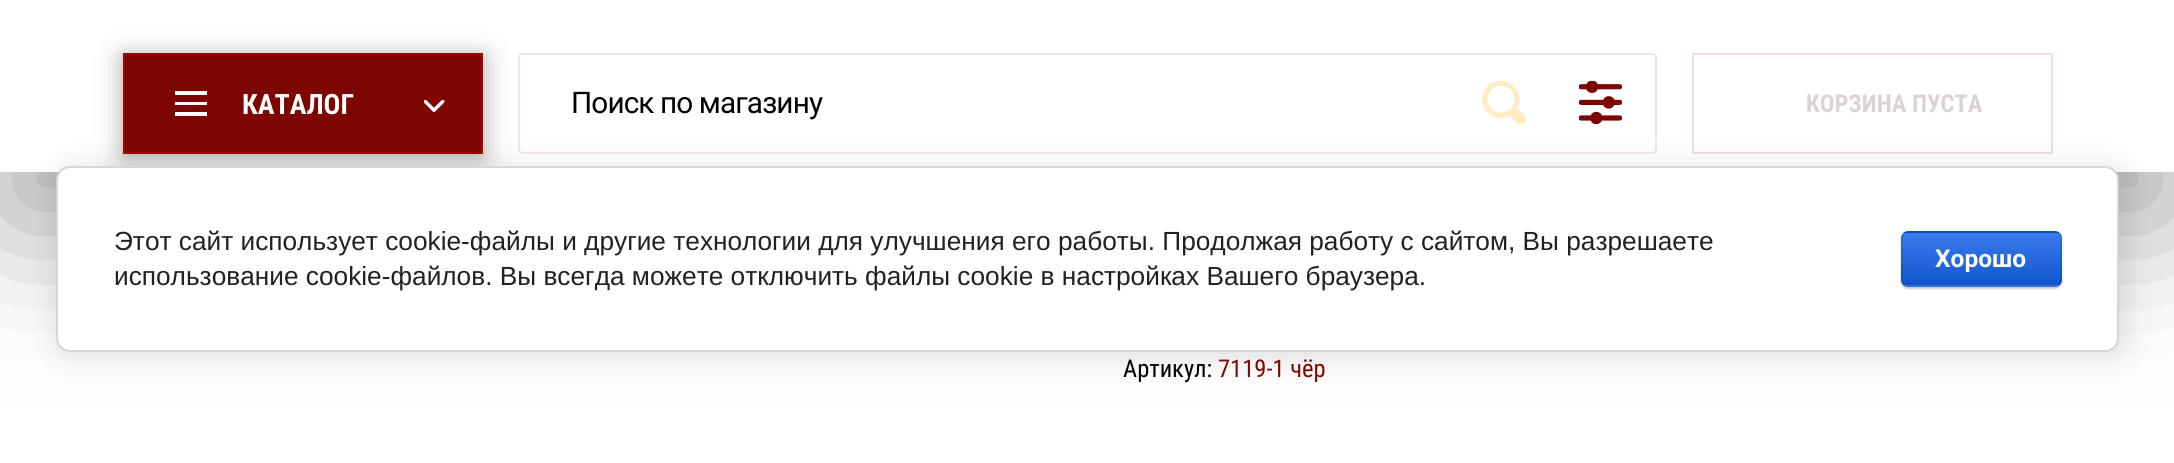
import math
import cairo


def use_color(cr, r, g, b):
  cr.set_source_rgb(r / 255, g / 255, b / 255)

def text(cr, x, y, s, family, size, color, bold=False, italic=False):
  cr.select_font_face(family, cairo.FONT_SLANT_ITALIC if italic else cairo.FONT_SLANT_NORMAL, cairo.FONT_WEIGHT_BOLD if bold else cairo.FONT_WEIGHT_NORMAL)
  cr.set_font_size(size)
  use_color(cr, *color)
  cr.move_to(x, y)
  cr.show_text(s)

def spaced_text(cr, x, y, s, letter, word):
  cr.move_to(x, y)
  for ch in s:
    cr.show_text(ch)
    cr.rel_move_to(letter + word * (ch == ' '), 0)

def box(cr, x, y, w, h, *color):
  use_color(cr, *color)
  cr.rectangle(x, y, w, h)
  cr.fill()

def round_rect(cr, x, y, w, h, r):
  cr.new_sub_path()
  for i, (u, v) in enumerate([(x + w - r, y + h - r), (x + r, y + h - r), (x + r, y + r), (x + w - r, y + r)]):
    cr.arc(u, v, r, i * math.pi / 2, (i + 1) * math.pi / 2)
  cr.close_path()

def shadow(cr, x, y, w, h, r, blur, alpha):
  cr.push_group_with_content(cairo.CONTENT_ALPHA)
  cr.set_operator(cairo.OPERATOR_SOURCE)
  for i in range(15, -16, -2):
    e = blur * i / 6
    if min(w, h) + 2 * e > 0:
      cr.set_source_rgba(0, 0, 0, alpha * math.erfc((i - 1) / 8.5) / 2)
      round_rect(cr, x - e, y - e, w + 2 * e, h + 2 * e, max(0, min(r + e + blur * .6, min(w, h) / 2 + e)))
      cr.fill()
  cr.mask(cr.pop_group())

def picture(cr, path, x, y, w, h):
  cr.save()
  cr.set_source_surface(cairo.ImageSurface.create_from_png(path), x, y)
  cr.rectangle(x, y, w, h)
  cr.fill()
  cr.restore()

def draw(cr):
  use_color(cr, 255, 255, 255)
  cr.paint()
  use_color(cr, 168, 168, 168)
  shadow(cr, 0, 53, 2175, 171, 0, 73.5, 1)
  box(cr, 0, 0, 2174, 172, 255, 255, 255)
  use_color(cr, 168, 168, 168)
  shadow(cr, 123, 58, 360, 101, 0, 13, 1)
  use_color(cr, 126, 6, 0)
  cr.rectangle(124, 54, 358, 99)
  cr.fill_preserve()
  use_color(cr, 159, 8, 0)
  cr.stroke()
  box(cr, 175, 102, 32, 3, 255, 255, 255)
  box(cr, 175, 112, 32, 4, 255, 255, 255)
  box(cr, 175, 91, 32, 4, 255, 255, 255)
  picture(cr, "img_01.png", 424, 100, 21, 12)
  round_rect(cr, 519, 54, 1137, 99, 3)
  use_color(cr, 242, 230, 229)
  cr.stroke()
  picture(cr, "img_02.png", 1482, 81, 44, 43)
  picture(cr, "img_03.png", 1579, 81, 43, 43)
  cr.rectangle(1693, 54, 359, 99)
  use_color(cr, 238, 223, 222)
  cr.stroke()
  use_color(cr, 0, 0, 0)
  shadow(cr, 60, 170, 2063, 185, 14, 16, 0.14)
  use_color(cr, 255, 255, 255)
  round_rect(cr, 57, 167, 2061, 184, 13)
  cr.fill_preserve()
  use_color(cr, 214, 214, 214)
  cr.stroke()
  use_color(cr, 0, 0, 0)
  shadow(cr, 1901, 233, 161, 56, 7, 1, 0.2)
  cr.save()
  round_rect(cr, 1901, 231, 161, 56, 7)
  cr.clip()
  gradient = cairo.LinearGradient(1981, 180, 1981, 233)
  gradient.add_color_stop_rgba(0, 0.231, 0.486, 0.937, 1)
  gradient.add_color_stop_rgba(1, 0.067, 0.333, 0.8, 1)
  cr.set_source(gradient)
  cr.rectangle(1901, 231, 161, 2)
  cr.fill()
  gradient = cairo.LinearGradient(1981, 233, 1981, 285)
  gradient.add_color_stop_rgba(0, 0.231, 0.486, 0.937, 1)
  gradient.add_color_stop_rgba(1, 0.067, 0.333, 0.8, 1)
  cr.set_source(gradient)
  cr.rectangle(1901, 233, 161, 52)
  cr.fill()
  gradient = cairo.LinearGradient(1981, 285, 1981, 338)
  gradient.add_color_stop_rgba(0, 0.231, 0.486, 0.937, 1)
  gradient.add_color_stop_rgba(1, 0.067, 0.333, 0.8, 1)
  cr.set_source(gradient)
  cr.rectangle(1901, 285, 161, 2)
  cr.fill()
  cr.restore()
  round_rect(cr, 1902, 232, 159, 54, 6)
  cr.set_source_rgba(0, 0, 0, 0.1)
  cr.stroke()
  text(cr, 242, 114, "КАТАЛОГ", "Roboto Condensed", 28, (255, 255, 255), bold=True)
  cr.select_font_face("Roboto")
  cr.set_font_size(29.75)
  use_color(cr, 0, 0, 0)
  spaced_text(cr, 571, 113, "Поиск по магазину", -0.9, 0)
  text(cr, 1806, 112, "КОРЗИНА ПУСТА", "Roboto Condensed", 24.5, (219, 210, 211), bold=True)
  text(cr, 1123, 377, "Артикул:", "Roboto Condensed", 24.5, (0, 0, 0))
  text(cr, 1218, 377, "7119-1 чёр", "Roboto Condensed", 24.5, (129, 6, 0))
  text(cr, 114, 250, "Этот сайт использует cookie-файлы и другие технологии для улучшения его работы. Продолжая работу с сайтом, Вы разрешаете", "Liberation Sans", 26.25, (33, 33, 33))
  text(cr, 114, 285, "использование cookie-файлов. Вы всегда можете отключить файлы cookie в настройках Вашего браузера.", "Liberation Sans", 26.25, (33, 33, 33))
  text(cr, 1935, 267, "Хорошо", "Roboto", 24.5, (255, 255, 255), bold=True)


surface = cairo.ImageSurface(cairo.FORMAT_RGB24, 2174, 463)
cr = cairo.Context(surface)
options = cairo.FontOptions()
options.set_hint_metrics(cairo.HINT_METRICS_OFF)
options.set_hint_style(cairo.HINT_STYLE_NONE)
cr.set_font_options(options)
cr.set_miter_limit(4)
draw(cr)
surface.write_to_png("out.png")
